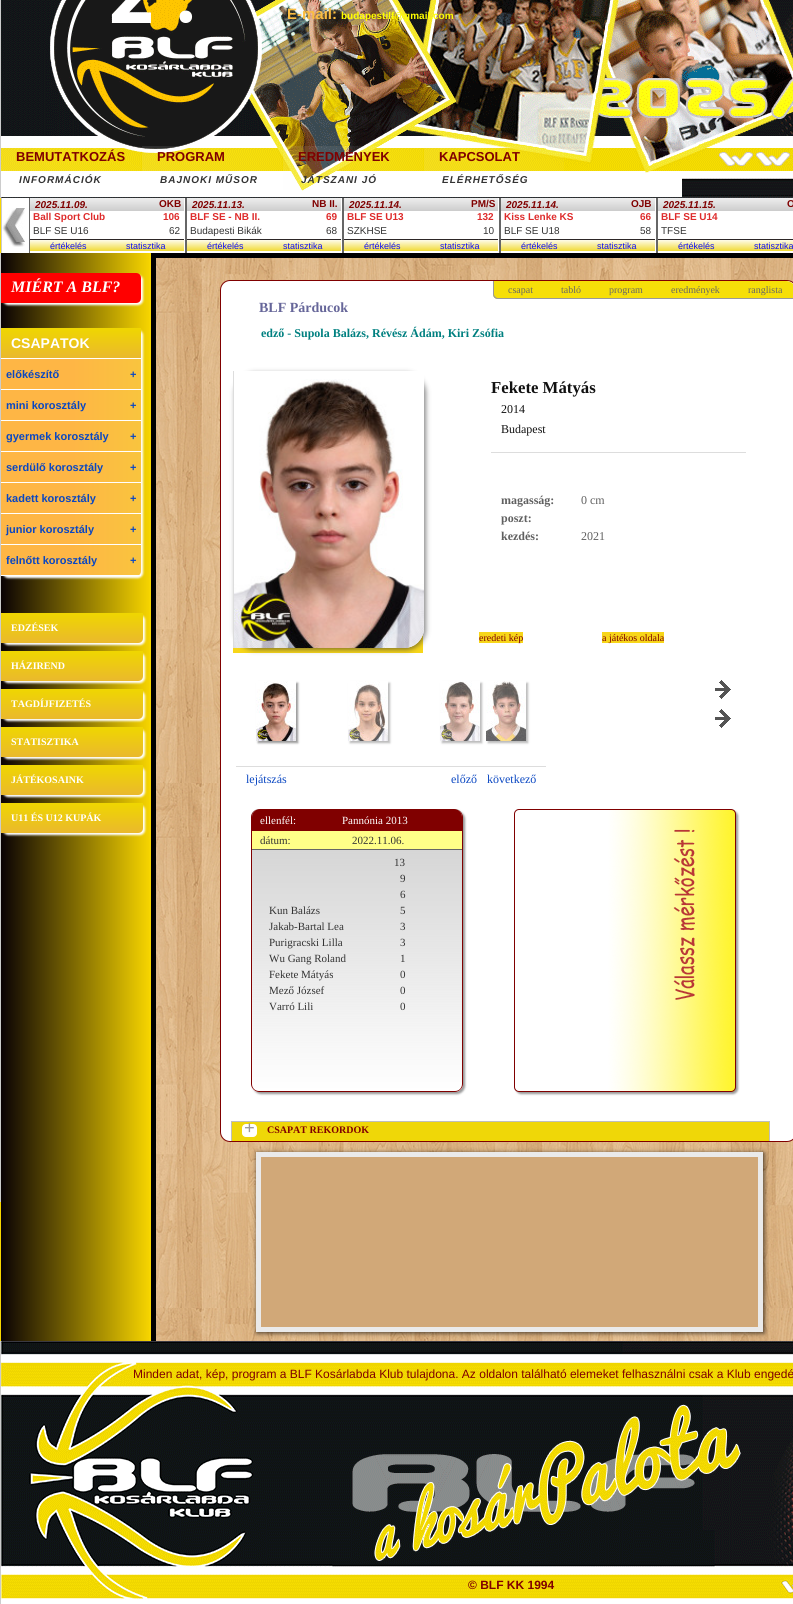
import math
import cairo


def use_color(cr, r, g, b):
  cr.set_source_rgb(r / 255, g / 255, b / 255)

def text(cr, x, y, s, family, size, color, bold=False, italic=False):
  cr.select_font_face(family, cairo.FONT_SLANT_ITALIC if italic else cairo.FONT_SLANT_NORMAL, cairo.FONT_WEIGHT_BOLD if bold else cairo.FONT_WEIGHT_NORMAL)
  cr.set_font_size(size)
  use_color(cr, *color)
  cr.move_to(x, y)
  cr.show_text(s)

def spaced_text(cr, x, y, s, letter, word):
  cr.move_to(x, y)
  for ch in s:
    cr.show_text(ch)
    cr.rel_move_to(letter + word * (ch == ' '), 0)

def box(cr, x, y, w, h, *color):
  use_color(cr, *color)
  cr.rectangle(x, y, w, h)
  cr.fill()

def round_rect(cr, x, y, w, h, r):
  cr.new_sub_path()
  for i, (u, v) in enumerate([(x + w - r, y + h - r), (x + r, y + h - r), (x + r, y + r), (x + w - r, y + r)]):
    cr.arc(u, v, r, i * math.pi / 2, (i + 1) * math.pi / 2)
  cr.close_path()

def shadow(cr, x, y, w, h, r, blur, alpha):
  cr.push_group_with_content(cairo.CONTENT_ALPHA)
  cr.set_operator(cairo.OPERATOR_SOURCE)
  for i in range(15, -16, -2):
    e = blur * i / 6
    if min(w, h) + 2 * e > 0:
      cr.set_source_rgba(0, 0, 0, alpha * math.erfc((i - 1) / 8.5) / 2)
      round_rect(cr, x - e, y - e, w + 2 * e, h + 2 * e, max(0, min(r + e + blur * .6, min(w, h) / 2 + e)))
      cr.fill()
  cr.mask(cr.pop_group())

def picture(cr, path, x, y, w, h):
  cr.save()
  cr.set_source_surface(cairo.ImageSurface.create_from_png(path), x, y)
  cr.rectangle(x, y, w, h)
  cr.fill()
  cr.restore()

def draw(cr):
  use_color(cr, 247, 214, 0)
  cr.paint()
  picture(cr, "img_01.png", 1, 0, 792, 198)
  box(cr, 0, 0, 1, 198, 204, 204, 204)
  picture(cr, "img_02.png", 1, 146, 140, 25)
  picture(cr, "img_03.png", 142, 146, 140, 25)
  picture(cr, "img_04.png", 283, 146, 140, 44)
  picture(cr, "img_05.png", 424, 146, 140, 25)
  box(cr, 2, 198, 791, 55, 255, 255, 255)
  box(cr, 1, 198, 1, 55, 204, 204, 204)
  picture(cr, "img_06.png", 2, 208, 23, 39)
  box(cr, 185, 198, 2, 55, 102, 102, 102)
  box(cr, 29, 198, 1, 55, 102, 102, 102)
  gradient = cairo.LinearGradient(107, 198, 107, 211)
  gradient.add_color_stop_rgba(0, 0.933, 0.933, 0.933, 1)
  gradient.add_color_stop_rgba(1, 0.8, 0.8, 0.8, 1)
  cr.set_source(gradient)
  cr.rectangle(30, 198, 154, 13)
  cr.fill()
  gradient = cairo.LinearGradient(69, 240, 69, 251)
  gradient.add_color_stop_rgba(0, 0.996, 0.988, 0.918, 1)
  gradient.add_color_stop_rgba(1, 0.945, 0.855, 0.212, 1)
  cr.set_source(gradient)
  cr.rectangle(30, 240, 77, 11)
  cr.fill()
  box(cr, 30, 239, 154, 1, 45, 39, 39)
  gradient = cairo.LinearGradient(146, 240, 146, 251)
  gradient.add_color_stop_rgba(0, 0.996, 0.988, 0.918, 1)
  gradient.add_color_stop_rgba(1, 0.945, 0.855, 0.212, 1)
  cr.set_source(gradient)
  cr.rectangle(107, 240, 77, 11)
  cr.fill()
  box(cr, 342, 198, 2, 55, 102, 102, 102)
  gradient = cairo.LinearGradient(264, 198, 264, 211)
  gradient.add_color_stop_rgba(0, 0.933, 0.933, 0.933, 1)
  gradient.add_color_stop_rgba(1, 0.8, 0.8, 0.8, 1)
  cr.set_source(gradient)
  cr.rectangle(187, 198, 154, 13)
  cr.fill()
  gradient = cairo.LinearGradient(226, 240, 226, 251)
  gradient.add_color_stop_rgba(0, 0.996, 0.988, 0.918, 1)
  gradient.add_color_stop_rgba(1, 0.945, 0.855, 0.212, 1)
  cr.set_source(gradient)
  cr.rectangle(187, 240, 77, 11)
  cr.fill()
  box(cr, 187, 239, 154, 1, 45, 39, 39)
  gradient = cairo.LinearGradient(303, 240, 303, 251)
  gradient.add_color_stop_rgba(0, 0.996, 0.988, 0.918, 1)
  gradient.add_color_stop_rgba(1, 0.945, 0.855, 0.212, 1)
  cr.set_source(gradient)
  cr.rectangle(264, 240, 77, 11)
  cr.fill()
  box(cr, 499, 198, 2, 55, 102, 102, 102)
  gradient = cairo.LinearGradient(421, 198, 421, 211)
  gradient.add_color_stop_rgba(0, 0.933, 0.933, 0.933, 1)
  gradient.add_color_stop_rgba(1, 0.8, 0.8, 0.8, 1)
  cr.set_source(gradient)
  cr.rectangle(344, 198, 154, 13)
  cr.fill()
  gradient = cairo.LinearGradient(383, 240, 383, 251)
  gradient.add_color_stop_rgba(0, 0.996, 0.988, 0.918, 1)
  gradient.add_color_stop_rgba(1, 0.945, 0.855, 0.212, 1)
  cr.set_source(gradient)
  cr.rectangle(344, 240, 77, 11)
  cr.fill()
  box(cr, 344, 239, 154, 1, 45, 39, 39)
  gradient = cairo.LinearGradient(460, 240, 460, 251)
  gradient.add_color_stop_rgba(0, 0.996, 0.988, 0.918, 1)
  gradient.add_color_stop_rgba(1, 0.945, 0.855, 0.212, 1)
  cr.set_source(gradient)
  cr.rectangle(421, 240, 77, 11)
  cr.fill()
  box(cr, 656, 198, 2, 55, 102, 102, 102)
  gradient = cairo.LinearGradient(578, 198, 578, 211)
  gradient.add_color_stop_rgba(0, 0.933, 0.933, 0.933, 1)
  gradient.add_color_stop_rgba(1, 0.8, 0.8, 0.8, 1)
  cr.set_source(gradient)
  cr.rectangle(501, 198, 154, 13)
  cr.fill()
  gradient = cairo.LinearGradient(540, 240, 540, 251)
  gradient.add_color_stop_rgba(0, 0.996, 0.988, 0.918, 1)
  gradient.add_color_stop_rgba(1, 0.945, 0.855, 0.212, 1)
  cr.set_source(gradient)
  cr.rectangle(501, 240, 77, 11)
  cr.fill()
  box(cr, 501, 239, 154, 1, 45, 39, 39)
  gradient = cairo.LinearGradient(617, 240, 617, 251)
  gradient.add_color_stop_rgba(0, 0.996, 0.988, 0.918, 1)
  gradient.add_color_stop_rgba(1, 0.945, 0.855, 0.212, 1)
  cr.set_source(gradient)
  cr.rectangle(578, 240, 77, 11)
  cr.fill()
  gradient = cairo.LinearGradient(735, 198, 735, 211)
  gradient.add_color_stop_rgba(0, 0.933, 0.933, 0.933, 1)
  gradient.add_color_stop_rgba(1, 0.8, 0.8, 0.8, 1)
  cr.set_source(gradient)
  cr.rectangle(658, 198, 135, 13)
  cr.fill()
  gradient = cairo.LinearGradient(697, 240, 697, 251)
  gradient.add_color_stop_rgba(0, 0.996, 0.988, 0.918, 1)
  gradient.add_color_stop_rgba(1, 0.945, 0.855, 0.212, 1)
  cr.set_source(gradient)
  cr.rectangle(658, 240, 77, 11)
  cr.fill()
  box(cr, 658, 239, 135, 1, 45, 39, 39)
  gradient = cairo.LinearGradient(774, 240, 774, 251)
  gradient.add_color_stop_rgba(0, 0.996, 0.988, 0.918, 1)
  gradient.add_color_stop_rgba(1, 0.945, 0.855, 0.212, 1)
  cr.set_source(gradient)
  cr.rectangle(735, 240, 58, 11)
  cr.fill()
  box(cr, 0, 253, 1, 949, 204, 204, 204)
  gradient = cairo.LinearGradient(1, 797, 151, 797)
  gradient.add_color_stop_rgba(0, 0.039, 0.008, 0.016, 1)
  gradient.add_color_stop_rgba(1, 0.973, 0.839, 0, 1)
  cr.set_source(gradient)
  cr.rectangle(1, 253, 148, 1088)
  cr.fill()
  use_color(cr, 255, 255, 255)
  shadow(cr, 3, 275, 140, 30, 5, 1, 1)
  use_color(cr, 255, 0, 0)
  cr.new_path()
  cr.move_to(1, 273)
  cr.line_to(136, 273)
  cr.curve_to(139, 273, 141, 275, 141, 278)
  cr.line_to(141, 298)
  cr.curve_to(141, 301, 139, 303, 136, 303)
  cr.line_to(1, 303)
  cr.close_path()
  cr.fill()
  use_color(cr, 255, 255, 255)
  shadow(cr, 3, 330, 140, 248, 5, 1, 1)
  gradient = cairo.LinearGradient(1, 452, 141, 452)
  gradient.add_color_stop_rgba(0.51, 0.996, 0.714, 0.271, 1)
  gradient.add_color_stop_rgba(1, 0.976, 0.769, 0.243, 1)
  cr.set_source(gradient)
  cr.new_path()
  cr.move_to(1, 328)
  cr.line_to(136, 328)
  cr.curve_to(139, 328, 141, 330, 141, 333)
  cr.line_to(141, 571)
  cr.curve_to(141, 574, 139, 576, 136, 576)
  cr.line_to(1, 576)
  cr.close_path()
  cr.fill()
  gradient = cairo.LinearGradient(71, 328, 71, 358)
  gradient.add_color_stop_rgba(0, 0.937, 0.843, 0, 1)
  gradient.add_color_stop_rgba(1, 0.918, 0.725, 0.176, 1)
  cr.set_source(gradient)
  cr.rectangle(1, 328, 140, 30)
  cr.fill()
  box(cr, 1, 358, 140, 1, 255, 255, 255)
  box(cr, 1, 389, 140, 1, 255, 255, 255)
  box(cr, 1, 420, 140, 1, 255, 255, 255)
  box(cr, 1, 451, 140, 1, 255, 255, 255)
  box(cr, 1, 482, 140, 1, 255, 255, 255)
  box(cr, 1, 513, 140, 1, 255, 255, 255)
  box(cr, 1, 544, 140, 1, 255, 255, 255)
  box(cr, 1, 575, 140, 1, 255, 255, 255)
  use_color(cr, 255, 255, 255)
  shadow(cr, 3, 615, 142, 30, 5, 1, 1)
  gradient = cairo.LinearGradient(72, 613, 72, 643)
  gradient.add_color_stop_rgba(0, 0.937, 0.843, 0, 1)
  gradient.add_color_stop_rgba(1, 0.918, 0.725, 0.176, 1)
  cr.set_source(gradient)
  cr.new_path()
  cr.move_to(1, 613)
  cr.line_to(143, 613)
  cr.line_to(143, 638)
  cr.curve_to(143, 641, 141, 643, 138, 643)
  cr.line_to(1, 643)
  cr.close_path()
  cr.fill()
  use_color(cr, 255, 255, 255)
  shadow(cr, 3, 653, 142, 30, 5, 1, 1)
  gradient = cairo.LinearGradient(72, 651, 72, 681)
  gradient.add_color_stop_rgba(0, 0.937, 0.843, 0, 1)
  gradient.add_color_stop_rgba(1, 0.918, 0.725, 0.176, 1)
  cr.set_source(gradient)
  cr.new_path()
  cr.move_to(1, 651)
  cr.line_to(143, 651)
  cr.line_to(143, 676)
  cr.curve_to(143, 679, 141, 681, 138, 681)
  cr.line_to(1, 681)
  cr.close_path()
  cr.fill()
  use_color(cr, 255, 255, 255)
  shadow(cr, 3, 691, 142, 30, 5, 1, 1)
  gradient = cairo.LinearGradient(72, 689, 72, 719)
  gradient.add_color_stop_rgba(0, 0.937, 0.843, 0, 1)
  gradient.add_color_stop_rgba(1, 0.918, 0.725, 0.176, 1)
  cr.set_source(gradient)
  cr.new_path()
  cr.move_to(1, 689)
  cr.line_to(143, 689)
  cr.line_to(143, 714)
  cr.curve_to(143, 717, 141, 719, 138, 719)
  cr.line_to(1, 719)
  cr.close_path()
  cr.fill()
  use_color(cr, 255, 255, 255)
  shadow(cr, 3, 729, 142, 30, 5, 1, 1)
  gradient = cairo.LinearGradient(72, 727, 72, 757)
  gradient.add_color_stop_rgba(0, 0.937, 0.843, 0, 1)
  gradient.add_color_stop_rgba(1, 0.918, 0.725, 0.176, 1)
  cr.set_source(gradient)
  cr.new_path()
  cr.move_to(1, 727)
  cr.line_to(143, 727)
  cr.line_to(143, 752)
  cr.curve_to(143, 755, 141, 757, 138, 757)
  cr.line_to(1, 757)
  cr.close_path()
  cr.fill()
  use_color(cr, 255, 255, 255)
  shadow(cr, 3, 767, 142, 30, 5, 1, 1)
  gradient = cairo.LinearGradient(72, 765, 72, 795)
  gradient.add_color_stop_rgba(0, 0.937, 0.843, 0, 1)
  gradient.add_color_stop_rgba(1, 0.918, 0.725, 0.176, 1)
  cr.set_source(gradient)
  cr.new_path()
  cr.move_to(1, 765)
  cr.line_to(143, 765)
  cr.line_to(143, 790)
  cr.curve_to(143, 793, 141, 795, 138, 795)
  cr.line_to(1, 795)
  cr.close_path()
  cr.fill()
  use_color(cr, 255, 255, 255)
  shadow(cr, 3, 805, 142, 30, 5, 1, 1)
  gradient = cairo.LinearGradient(72, 803, 72, 833)
  gradient.add_color_stop_rgba(0, 0.937, 0.843, 0, 1)
  gradient.add_color_stop_rgba(1, 0.918, 0.725, 0.176, 1)
  cr.set_source(gradient)
  cr.new_path()
  cr.move_to(1, 803)
  cr.line_to(143, 803)
  cr.line_to(143, 828)
  cr.curve_to(143, 831, 141, 833, 138, 833)
  cr.line_to(1, 833)
  cr.close_path()
  cr.fill()
  picture(cr, "img_07.png", 156, 258, 637, 1083)
  cr.rectangle(153.5, 255.5, 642, 1093)
  use_color(cr, 0, 0, 0)
  cr.set_line_width(5)
  cr.stroke()
  use_color(cr, 255, 255, 255)
  round_rect(cr, 220.5, 280.5, 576, 861, 9.5)
  cr.fill_preserve()
  use_color(cr, 128, 0, 0)
  cr.set_line_width(1)
  cr.stroke()
  cr.save()
  round_rect(cr, 221, 281, 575, 860, 9)
  cr.clip()
  use_color(cr, 246, 223, 8)
  cr.new_path()
  cr.move_to(493, 281)
  cr.line_to(786, 281)
  cr.curve_to(791.5, 281, 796, 285.5, 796, 291)
  cr.line_to(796, 299)
  cr.line_to(498, 299)
  cr.curve_to(495, 299, 493, 297, 493, 294)
  cr.close_path()
  cr.fill()
  cr.restore()
  use_color(cr, 153, 153, 153)
  cr.set_fill_rule(cairo.FILL_RULE_EVEN_ODD)
  cr.new_path()
  cr.move_to(493, 281)
  cr.line_to(786, 281)
  cr.curve_to(792, 281, 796, 285, 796, 291)
  cr.line_to(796, 299)
  cr.line_to(498, 299)
  cr.curve_to(495, 299, 493, 297, 493, 294)
  cr.close_path()
  cr.move_to(494, 281)
  cr.line_to(786, 281)
  cr.curve_to(792, 281, 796, 285, 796, 291)
  cr.line_to(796, 298)
  cr.line_to(498, 298)
  cr.curve_to(496, 298, 494, 296, 494, 294)
  cr.close_path()
  cr.fill()
  box(cr, 233, 634, 190, 19, 247, 214, 25)
  cr.save()
  cr.new_path()
  cr.move_to(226, 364)
  cr.line_to(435, 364)
  cr.line_to(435, 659)
  cr.line_to(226, 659)
  cr.close_path()
  cr.move_to(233, 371)
  cr.line_to(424, 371)
  cr.line_to(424, 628)
  cr.curve_to(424, 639, 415, 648, 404, 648)
  cr.line_to(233, 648)
  cr.close_path()
  cr.clip()
  use_color(cr, 50, 50, 50)
  shadow(cr, 235, 373, 191, 277, 20, 2.5, 0.57)
  cr.restore()
  box(cr, 233, 371, 1, 277, 221, 221, 221)
  picture(cr, "img_08.png", 234, 378, 190, 270)
  picture(cr, "img_09.png", 404, 631, 20, 17)
  box(cr, 491, 452, 255, 1, 221, 221, 221)
  box(cr, 479, 632, 44, 11, 247, 214, 25)
  box(cr, 602, 632, 62, 11, 247, 214, 25)
  use_color(cr, 153, 153, 153)
  shadow(cr, 258, 683, 40, 60, 0, 1, 1)
  picture(cr, "img_10.png", 256, 681, 40, 60)
  cr.save()
  cr.new_path()
  cr.move_to(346, 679)
  cr.line_to(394, 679)
  cr.line_to(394, 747)
  cr.line_to(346, 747)
  cr.close_path()
  cr.move_to(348, 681)
  cr.line_to(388, 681)
  cr.line_to(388, 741)
  cr.line_to(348, 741)
  cr.close_path()
  cr.clip()
  use_color(cr, 187, 187, 187)
  shadow(cr, 350, 683, 40, 60, 0, 1, 1)
  cr.restore()
  picture(cr, "img_11.png", 348, 681, 40, 60)
  cr.save()
  cr.new_path()
  cr.move_to(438, 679)
  cr.line_to(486, 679)
  cr.line_to(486, 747)
  cr.line_to(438, 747)
  cr.close_path()
  cr.move_to(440, 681)
  cr.line_to(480, 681)
  cr.line_to(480, 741)
  cr.line_to(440, 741)
  cr.close_path()
  cr.clip()
  use_color(cr, 187, 187, 187)
  shadow(cr, 442, 683, 40, 60, 0, 1, 1)
  cr.restore()
  picture(cr, "img_12.png", 440, 681, 40, 60)
  cr.save()
  cr.new_path()
  cr.move_to(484, 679)
  cr.line_to(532, 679)
  cr.line_to(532, 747)
  cr.line_to(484, 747)
  cr.close_path()
  cr.move_to(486, 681)
  cr.line_to(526, 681)
  cr.line_to(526, 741)
  cr.line_to(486, 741)
  cr.close_path()
  cr.clip()
  use_color(cr, 187, 187, 187)
  shadow(cr, 488, 683, 40, 60, 0, 1, 1)
  cr.restore()
  picture(cr, "img_13.png", 486, 681, 40, 60)
  picture(cr, "img_14.png", 715, 709, 16, 19)
  picture(cr, "img_14.png", 715, 680, 16, 19)
  box(cr, 236, 766, 310, 1, 221, 221, 221)
  cr.save()
  cr.new_path()
  cr.move_to(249, 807)
  cr.line_to(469, 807)
  cr.line_to(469, 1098)
  cr.line_to(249, 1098)
  cr.close_path()
  cr.move_to(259, 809)
  cr.line_to(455, 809)
  cr.curve_to(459.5, 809, 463, 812.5, 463, 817)
  cr.line_to(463, 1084)
  cr.curve_to(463, 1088.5, 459.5, 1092, 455, 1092)
  cr.line_to(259, 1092)
  cr.curve_to(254.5, 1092, 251, 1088.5, 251, 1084)
  cr.line_to(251, 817)
  cr.curve_to(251, 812.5, 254.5, 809, 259, 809)
  cr.close_path()
  cr.clip()
  use_color(cr, 50, 50, 50)
  shadow(cr, 253, 811, 212, 283, 8, 1, 0.5)
  cr.restore()
  cr.save()
  cr.set_fill_rule(cairo.FILL_RULE_WINDING)
  round_rect(cr, 251, 809, 212, 283, 8)
  cr.clip()
  gradient = cairo.LinearGradient(357, 809, 357, 1091)
  gradient.add_color_stop_rgba(0, 0.71, 0.71, 0.71, 0.65)
  gradient.add_color_stop_rgba(1, 0.71, 0.71, 0.71, 0)
  cr.set_source(gradient)
  cr.new_path()
  cr.move_to(259, 809)
  cr.line_to(455, 809)
  cr.curve_to(459.5, 809, 463, 812.5, 463, 817)
  cr.line_to(463, 1091)
  cr.line_to(251, 1091)
  cr.line_to(251, 817)
  cr.curve_to(251, 812.5, 254.5, 809, 259, 809)
  cr.close_path()
  cr.fill()
  cr.restore()
  use_color(cr, 128, 0, 0)
  cr.new_path()
  cr.move_to(259, 809)
  cr.line_to(455, 809)
  cr.curve_to(459, 809, 463, 813, 463, 817)
  cr.line_to(463, 1084)
  cr.curve_to(463, 1088, 459, 1092, 455, 1092)
  cr.line_to(259, 1092)
  cr.curve_to(255, 1092, 251, 1088, 251, 1084)
  cr.line_to(251, 817)
  cr.curve_to(251, 813, 255, 809, 259, 809)
  cr.close_path()
  cr.move_to(259, 809)
  cr.line_to(455, 809)
  cr.curve_to(459, 809, 462, 813, 462, 817)
  cr.line_to(462, 1084)
  cr.curve_to(462, 1088, 459, 1091, 455, 1091)
  cr.line_to(259, 1091)
  cr.curve_to(255, 1091, 252, 1088, 252, 1084)
  cr.line_to(252, 817)
  cr.curve_to(252, 813, 255, 809, 259, 809)
  cr.close_path()
  cr.fill()
  cr.new_path()
  cr.move_to(260, 809)
  cr.line_to(342, 809)
  cr.line_to(342, 831)
  cr.line_to(252, 831)
  cr.line_to(252, 817)
  cr.curve_to(252, 812.5, 255.5, 809, 260, 809)
  cr.close_path()
  cr.fill()
  cr.new_path()
  cr.move_to(342, 809)
  cr.line_to(454, 809)
  cr.curve_to(458.5, 809, 462, 812.5, 462, 817)
  cr.line_to(462, 831)
  cr.line_to(342, 831)
  cr.close_path()
  cr.fill()
  box(cr, 252, 831, 210, 18, 255, 255, 136)
  box(cr, 252, 849, 210, 1, 102, 102, 102)
  use_color(cr, 50, 50, 50)
  shadow(cr, 516, 811, 222, 283, 5, 1, 0.5)
  picture(cr, "img_15.png", 515, 810, 220, 282)
  round_rect(cr, 514.5, 809.5, 221, 282, 4.5)
  use_color(cr, 128, 0, 0)
  cr.stroke()
  use_color(cr, 190, 190, 190)
  cr.set_fill_rule(cairo.FILL_RULE_WINDING)
  cr.new_path()
  cr.move_to(231, 1121)
  cr.line_to(231, 1141)
  cr.line_to(232, 1141)
  cr.line_to(232, 1122)
  cr.line_to(769, 1122)
  cr.line_to(769, 1141)
  cr.line_to(770, 1141)
  cr.line_to(770, 1121)
  cr.close_path()
  cr.fill()
  box(cr, 232, 1122, 537, 19, 239, 215, 8)
  use_color(cr, 255, 255, 255)
  round_rect(cr, 242, 1124, 15, 13, 4)
  cr.fill()
  use_color(cr, 0, 0, 0)
  shadow(cr, 257, 1153, 507, 180, 0, 2.5, 0.7)
  use_color(cr, 209, 168, 120)
  cr.rectangle(258.5, 1154.5, 502, 175)
  cr.fill_preserve()
  use_color(cr, 234, 234, 234)
  cr.set_line_width(5)
  cr.stroke()
  picture(cr, "img_16.png", 1, 1341, 792, 263)
  box(cr, 0, 1341, 1, 263, 204, 204, 204)
  text(cr, 287, 19, "E-mail:", "Liberation Sans", 15, (251, 189, 65), bold=True)
  text(cr, 341, 19, "budapestilf@gmail.com", "Liberation Sans", 10, (255, 255, 0), bold=True)
  text(cr, 16, 161, "BEMUTATKOZÁS", "Liberation Sans", 13, (128, 0, 0), bold=True)
  cr.select_font_face("Liberation Sans", cairo.FONT_SLANT_ITALIC, cairo.FONT_WEIGHT_BOLD)
  cr.set_font_size(10)
  use_color(cr, 51, 51, 51)
  spaced_text(cr, 19, 183, "INFORMÁCIÓK", 1, 0)
  text(cr, 157, 161, "PROGRAM", "Liberation Sans", 13, (128, 0, 0), bold=True)
  cr.select_font_face("Liberation Sans", cairo.FONT_SLANT_ITALIC, cairo.FONT_WEIGHT_BOLD)
  cr.set_font_size(10)
  use_color(cr, 51, 51, 51)
  spaced_text(cr, 160, 183, "BAJNOKI MŰSOR", 1, 0)
  text(cr, 298, 161, "EREDMÉNYEK", "Liberation Sans", 13, (128, 0, 0), bold=True)
  cr.select_font_face("Liberation Sans", cairo.FONT_SLANT_ITALIC, cairo.FONT_WEIGHT_BOLD)
  cr.set_font_size(10)
  use_color(cr, 51, 51, 51)
  spaced_text(cr, 301, 183, "JÁTSZANI JÓ", 1, 0)
  text(cr, 439, 161, "KAPCSOLAT", "Liberation Sans", 13, (128, 0, 0), bold=True)
  cr.select_font_face("Liberation Sans", cairo.FONT_SLANT_ITALIC, cairo.FONT_WEIGHT_BOLD)
  cr.set_font_size(10)
  use_color(cr, 51, 51, 51)
  spaced_text(cr, 442, 183, "ELÉRHETŐSÉG", 1, 0)
  text(cr, 35, 208, "2025.11.09.", "Liberation Sans", 10, (128, 0, 0), bold=True, italic=True)
  text(cr, 159, 207, "OKB", "Liberation Sans", 10, (128, 0, 0), bold=True)
  text(cr, 33, 220, "Ball Sport Club", "Liberation Sans", 10, (222, 43, 43), bold=True)
  text(cr, 163, 220, "106", "Liberation Sans", 10, (222, 43, 43), bold=True)
  text(cr, 33, 234, "BLF SE U16", "Liberation Sans", 10, (51, 51, 51))
  text(cr, 169, 234, "62", "Liberation Sans", 10, (51, 51, 51))
  text(cr, 50, 249, "értékelés", "Liberation Sans", 9, (11, 11, 248))
  text(cr, 126, 249, "statisztika", "Liberation Sans", 9, (11, 11, 248))
  text(cr, 192, 208, "2025.11.13.", "Liberation Sans", 10, (128, 0, 0), bold=True, italic=True)
  text(cr, 312, 207, "NB II.", "Liberation Sans", 10, (128, 0, 0), bold=True)
  text(cr, 190, 220, "BLF SE - NB II.", "Liberation Sans", 10, (222, 43, 43), bold=True)
  text(cr, 326, 220, "69", "Liberation Sans", 10, (222, 43, 43), bold=True)
  text(cr, 190, 234, "Budapesti Bikák", "Liberation Sans", 10, (51, 51, 51))
  text(cr, 326, 234, "68", "Liberation Sans", 10, (51, 51, 51))
  text(cr, 207, 249, "értékelés", "Liberation Sans", 9, (11, 11, 248))
  text(cr, 283, 249, "statisztika", "Liberation Sans", 9, (11, 11, 248))
  text(cr, 349, 208, "2025.11.14.", "Liberation Sans", 10, (128, 0, 0), bold=True, italic=True)
  text(cr, 471, 207, "PM/S", "Liberation Sans", 10, (128, 0, 0), bold=True)
  text(cr, 347, 220, "BLF SE U13", "Liberation Sans", 10, (222, 43, 43), bold=True)
  text(cr, 477, 220, "132", "Liberation Sans", 10, (222, 43, 43), bold=True)
  text(cr, 347, 234, "SZKHSE", "Liberation Sans", 10, (51, 51, 51))
  text(cr, 483, 234, "10", "Liberation Sans", 10, (51, 51, 51))
  text(cr, 364, 249, "értékelés", "Liberation Sans", 9, (11, 11, 248))
  text(cr, 440, 249, "statisztika", "Liberation Sans", 9, (11, 11, 248))
  text(cr, 506, 208, "2025.11.14.", "Liberation Sans", 10, (128, 0, 0), bold=True, italic=True)
  text(cr, 631, 207, "OJB", "Liberation Sans", 10, (128, 0, 0), bold=True)
  text(cr, 504, 220, "Kiss Lenke KS", "Liberation Sans", 10, (222, 43, 43), bold=True)
  text(cr, 640, 220, "66", "Liberation Sans", 10, (222, 43, 43), bold=True)
  text(cr, 504, 234, "BLF SE U18", "Liberation Sans", 10, (51, 51, 51))
  text(cr, 640, 234, "58", "Liberation Sans", 10, (51, 51, 51))
  text(cr, 521, 249, "értékelés", "Liberation Sans", 9, (11, 11, 248))
  text(cr, 597, 249, "statisztika", "Liberation Sans", 9, (11, 11, 248))
  text(cr, 663, 208, "2025.11.15.", "Liberation Sans", 10, (128, 0, 0), bold=True, italic=True)
  text(cr, 787, 207, "O", "Liberation Sans", 10, (128, 0, 0), bold=True)
  text(cr, 661, 220, "BLF SE U14", "Liberation Sans", 10, (222, 43, 43), bold=True)
  text(cr, 661, 234, "TFSE", "Liberation Sans", 10, (51, 51, 51))
  text(cr, 678, 249, "értékelés", "Liberation Sans", 9, (11, 11, 248))
  text(cr, 754, 249, "statisztika", "Liberation Sans", 9, (11, 11, 248))
  text(cr, 11, 292, "MIÉRT A BLF?", "Liberation Serif", 16, (255, 255, 255), bold=True, italic=True)
  text(cr, 11, 348, "CSAPATOK", "Liberation Sans", 14, (255, 255, 255), bold=True)
  text(cr, 6, 378, "előkészítő", "Liberation Sans", 11, (10, 71, 194), bold=True)
  text(cr, 130, 378, "+", "Liberation Sans", 11, (10, 71, 194), bold=True)
  text(cr, 6, 409, "mini korosztály", "Liberation Sans", 11, (10, 71, 194), bold=True)
  text(cr, 130, 409, "+", "Liberation Sans", 11, (10, 71, 194), bold=True)
  text(cr, 6, 440, "gyermek korosztály", "Liberation Sans", 11, (10, 71, 194), bold=True)
  text(cr, 130, 440, "+", "Liberation Sans", 11, (10, 71, 194), bold=True)
  text(cr, 6, 471, "serdülő korosztály", "Liberation Sans", 11, (10, 71, 194), bold=True)
  text(cr, 130, 471, "+", "Liberation Sans", 11, (10, 71, 194), bold=True)
  text(cr, 6, 502, "kadett korosztály", "Liberation Sans", 11, (10, 71, 194), bold=True)
  text(cr, 130, 502, "+", "Liberation Sans", 11, (10, 71, 194), bold=True)
  text(cr, 6, 533, "junior korosztály", "Liberation Sans", 11, (10, 71, 194), bold=True)
  text(cr, 130, 533, "+", "Liberation Sans", 11, (10, 71, 194), bold=True)
  text(cr, 6, 564, "felnőtt korosztály", "Liberation Sans", 11, (10, 71, 194), bold=True)
  text(cr, 130, 564, "+", "Liberation Sans", 11, (10, 71, 194), bold=True)
  text(cr, 11, 631, "EDZÉSEK", "Liberation Serif", 10, (255, 255, 255), bold=True)
  text(cr, 11, 669, "HÁZIREND", "Liberation Serif", 10, (255, 255, 255), bold=True)
  text(cr, 11, 707, "TAGDÍJFIZETÉS", "Liberation Serif", 10, (255, 255, 255), bold=True)
  text(cr, 11, 745, "STATISZTIKA", "Liberation Serif", 10, (255, 255, 255), bold=True)
  text(cr, 11, 783, "JÁTÉKOSAINK", "Liberation Serif", 10, (255, 255, 255), bold=True)
  text(cr, 11, 821, "U11 ÉS U12 KUPÁK", "Liberation Serif", 10, (255, 255, 255), bold=True)
  text(cr, 508, 293, "csapat", "Liberation Serif", 10, (102, 102, 102))
  text(cr, 561, 293, "tabló", "Liberation Serif", 10, (102, 102, 102))
  text(cr, 609, 293, "program", "Liberation Serif", 10, (102, 102, 102))
  text(cr, 671, 293, "eredmények", "Liberation Serif", 10, (102, 102, 102))
  text(cr, 748, 293, "ranglista", "Liberation Serif", 10, (102, 102, 102))
  text(cr, 259, 312, "BLF Párducok", "Liberation Serif", 14, (102, 102, 153), bold=True)
  text(cr, 261, 337, "edző - Supola Balázs, Révész Ádám, Kiri Zsófia", "Liberation Serif", 12, (0, 128, 128), bold=True)
  text(cr, 491, 393, "Fekete Mátyás", "Liberation Serif", 16.75, (17, 17, 17), bold=True)
  text(cr, 501, 413, "2014", "Liberation Serif", 12, (17, 17, 17))
  text(cr, 501, 433, "Budapest", "Liberation Serif", 12, (17, 17, 17))
  text(cr, 501, 504, "magasság:", "Liberation Serif", 12, (96, 96, 96), bold=True)
  text(cr, 581, 504, "0 cm", "Liberation Serif", 12, (96, 96, 96))
  text(cr, 501, 522, "poszt:", "Liberation Serif", 12, (96, 96, 96), bold=True)
  text(cr, 501, 540, "kezdés:", "Liberation Serif", 12, (96, 96, 96), bold=True)
  text(cr, 581, 540, "2021", "Liberation Serif", 12, (96, 96, 96))
  text(cr, 479, 641, "eredeti kép", "Liberation Serif", 10, (128, 0, 0))
  text(cr, 602, 641, "a játékos oldala", "Liberation Serif", 10, (128, 0, 0))
  text(cr, 246, 783, "lejátszás", "Liberation Serif", 12, (10, 71, 194))
  text(cr, 451, 783, "előző", "Liberation Serif", 12, (10, 71, 194))
  text(cr, 487, 783, "következő", "Liberation Serif", 12, (10, 71, 194))
  text(cr, 260, 824, "ellenfél:", "Liberation Serif", 11, (255, 255, 255))
  text(cr, 342, 824, "Pannónia 2013", "Liberation Serif", 11, (255, 255, 255))
  text(cr, 260, 844, "dátum:", "Liberation Serif", 11, (51, 51, 51))
  text(cr, 352, 844, "2022.11.06.", "Liberation Serif", 11, (51, 51, 51))
  text(cr, 394, 866, "13", "Liberation Serif", 11, (51, 51, 51))
  text(cr, 400, 882, "9", "Liberation Serif", 11, (51, 51, 51))
  text(cr, 400, 898, "6", "Liberation Serif", 11, (51, 51, 51))
  text(cr, 269, 914, "Kun Balázs", "Liberation Serif", 11, (51, 51, 51))
  text(cr, 400, 914, "5", "Liberation Serif", 11, (51, 51, 51))
  text(cr, 269, 930, "Jakab-Bartal Lea", "Liberation Serif", 11, (51, 51, 51))
  text(cr, 400, 930, "3", "Liberation Serif", 11, (51, 51, 51))
  text(cr, 269, 946, "Purigracski Lilla", "Liberation Serif", 11, (51, 51, 51))
  text(cr, 400, 946, "3", "Liberation Serif", 11, (51, 51, 51))
  text(cr, 269, 962, "Wu Gang Roland", "Liberation Serif", 11, (51, 51, 51))
  text(cr, 400, 962, "1", "Liberation Serif", 11, (51, 51, 51))
  text(cr, 269, 978, "Fekete Mátyás", "Liberation Serif", 11, (51, 51, 51))
  text(cr, 400, 978, "0", "Liberation Serif", 11, (51, 51, 51))
  text(cr, 269, 994, "Mező József", "Liberation Serif", 11, (51, 51, 51))
  text(cr, 400, 994, "0", "Liberation Serif", 11, (51, 51, 51))
  text(cr, 269, 1010, "Varró Lili", "Liberation Serif", 11, (51, 51, 51))
  text(cr, 400, 1010, "0", "Liberation Serif", 11, (51, 51, 51))
  text(cr, 244, 1134, "+", "Liberation Serif", 19, (153, 153, 153), bold=True)
  text(cr, 267, 1133, "CSAPAT REKORDOK", "Liberation Serif", 10, (128, 0, 0), bold=True)
  text(cr, 133, 1378, "Minden adat, kép, program a BLF Kosárlabda Klub tulajdona. Az oldalon található elemeket felhasználni csak a Klub engedé", "Liberation Sans", 12, (128, 0, 0))
  text(cr, 468, 1589, "© BLF KK 1994", "Liberation Sans", 12, (128, 0, 0), bold=True)


surface = cairo.ImageSurface(cairo.FORMAT_RGB24, 793, 1604)
cr = cairo.Context(surface)
options = cairo.FontOptions()
options.set_hint_metrics(cairo.HINT_METRICS_OFF)
options.set_hint_style(cairo.HINT_STYLE_NONE)
cr.set_font_options(options)
cr.set_miter_limit(4)
draw(cr)
surface.write_to_png("out.png")
